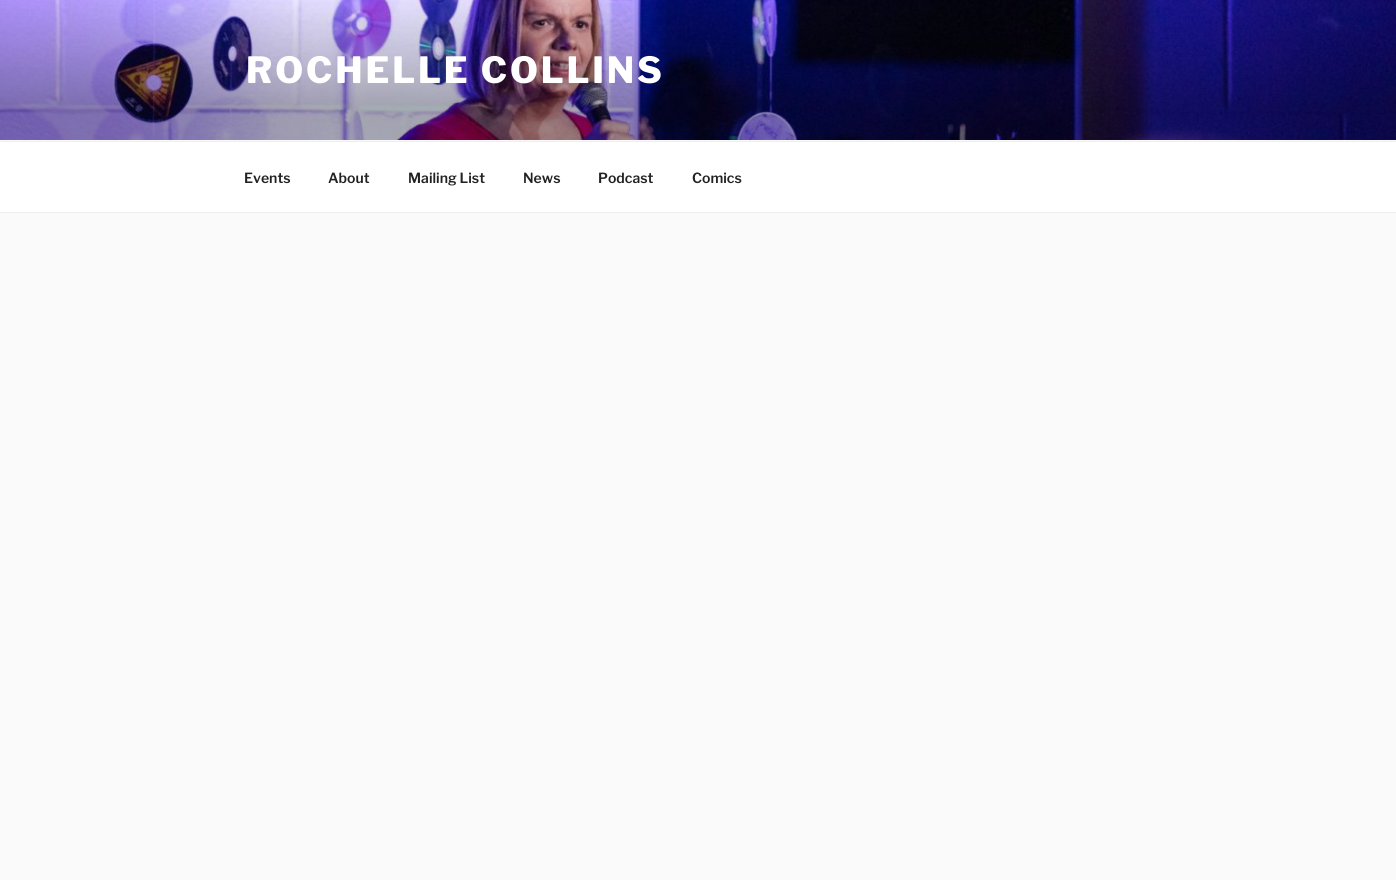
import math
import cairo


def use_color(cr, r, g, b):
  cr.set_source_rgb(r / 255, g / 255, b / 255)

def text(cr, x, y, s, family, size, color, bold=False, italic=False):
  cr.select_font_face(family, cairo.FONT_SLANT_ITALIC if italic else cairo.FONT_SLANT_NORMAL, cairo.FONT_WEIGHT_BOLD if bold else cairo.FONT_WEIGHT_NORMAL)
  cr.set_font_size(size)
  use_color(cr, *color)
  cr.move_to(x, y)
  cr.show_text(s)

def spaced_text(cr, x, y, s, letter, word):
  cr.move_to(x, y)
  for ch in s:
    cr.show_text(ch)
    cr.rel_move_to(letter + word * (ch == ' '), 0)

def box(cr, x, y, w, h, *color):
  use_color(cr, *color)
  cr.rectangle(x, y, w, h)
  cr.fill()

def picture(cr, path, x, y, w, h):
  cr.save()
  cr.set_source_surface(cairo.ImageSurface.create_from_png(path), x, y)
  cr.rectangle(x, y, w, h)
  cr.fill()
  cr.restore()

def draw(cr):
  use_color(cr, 250, 250, 250)
  cr.paint()
  picture(cr, "img_01.png", 0, 0, 1396, 140)
  box(cr, 0, 142, 1396, 70, 255, 255, 255)
  box(cr, 0, 141, 1396, 1, 238, 238, 238)
  box(cr, 0, 212, 1396, 1, 238, 238, 238)
  cr.select_font_face("Libre Franklin Thin")
  cr.set_font_size(36)
  use_color(cr, 255, 255, 255)
  spaced_text(cr, 246, 83, "ROCHELLE COLLINS", 2.9, 0)
  text(cr, 244, 183, "Events", "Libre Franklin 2 Thin", 14, (34, 34, 34))
  text(cr, 328, 183, "About", "Libre Franklin 2 Thin", 14, (34, 34, 34))
  text(cr, 408, 183, "Mailing List", "Libre Franklin 2 Thin", 14, (34, 34, 34))
  text(cr, 523, 183, "News", "Libre Franklin 2 Thin", 14, (34, 34, 34))
  text(cr, 598, 183, "Podcast", "Libre Franklin 2 Thin", 14, (34, 34, 34))
  text(cr, 692, 183, "Comics", "Libre Franklin 2 Thin", 14, (34, 34, 34))


surface = cairo.ImageSurface(cairo.FORMAT_RGB24, 1396, 880)
cr = cairo.Context(surface)
options = cairo.FontOptions()
options.set_hint_metrics(cairo.HINT_METRICS_OFF)
options.set_hint_style(cairo.HINT_STYLE_NONE)
cr.set_font_options(options)
cr.set_miter_limit(4)
draw(cr)
surface.write_to_png("out.png")
